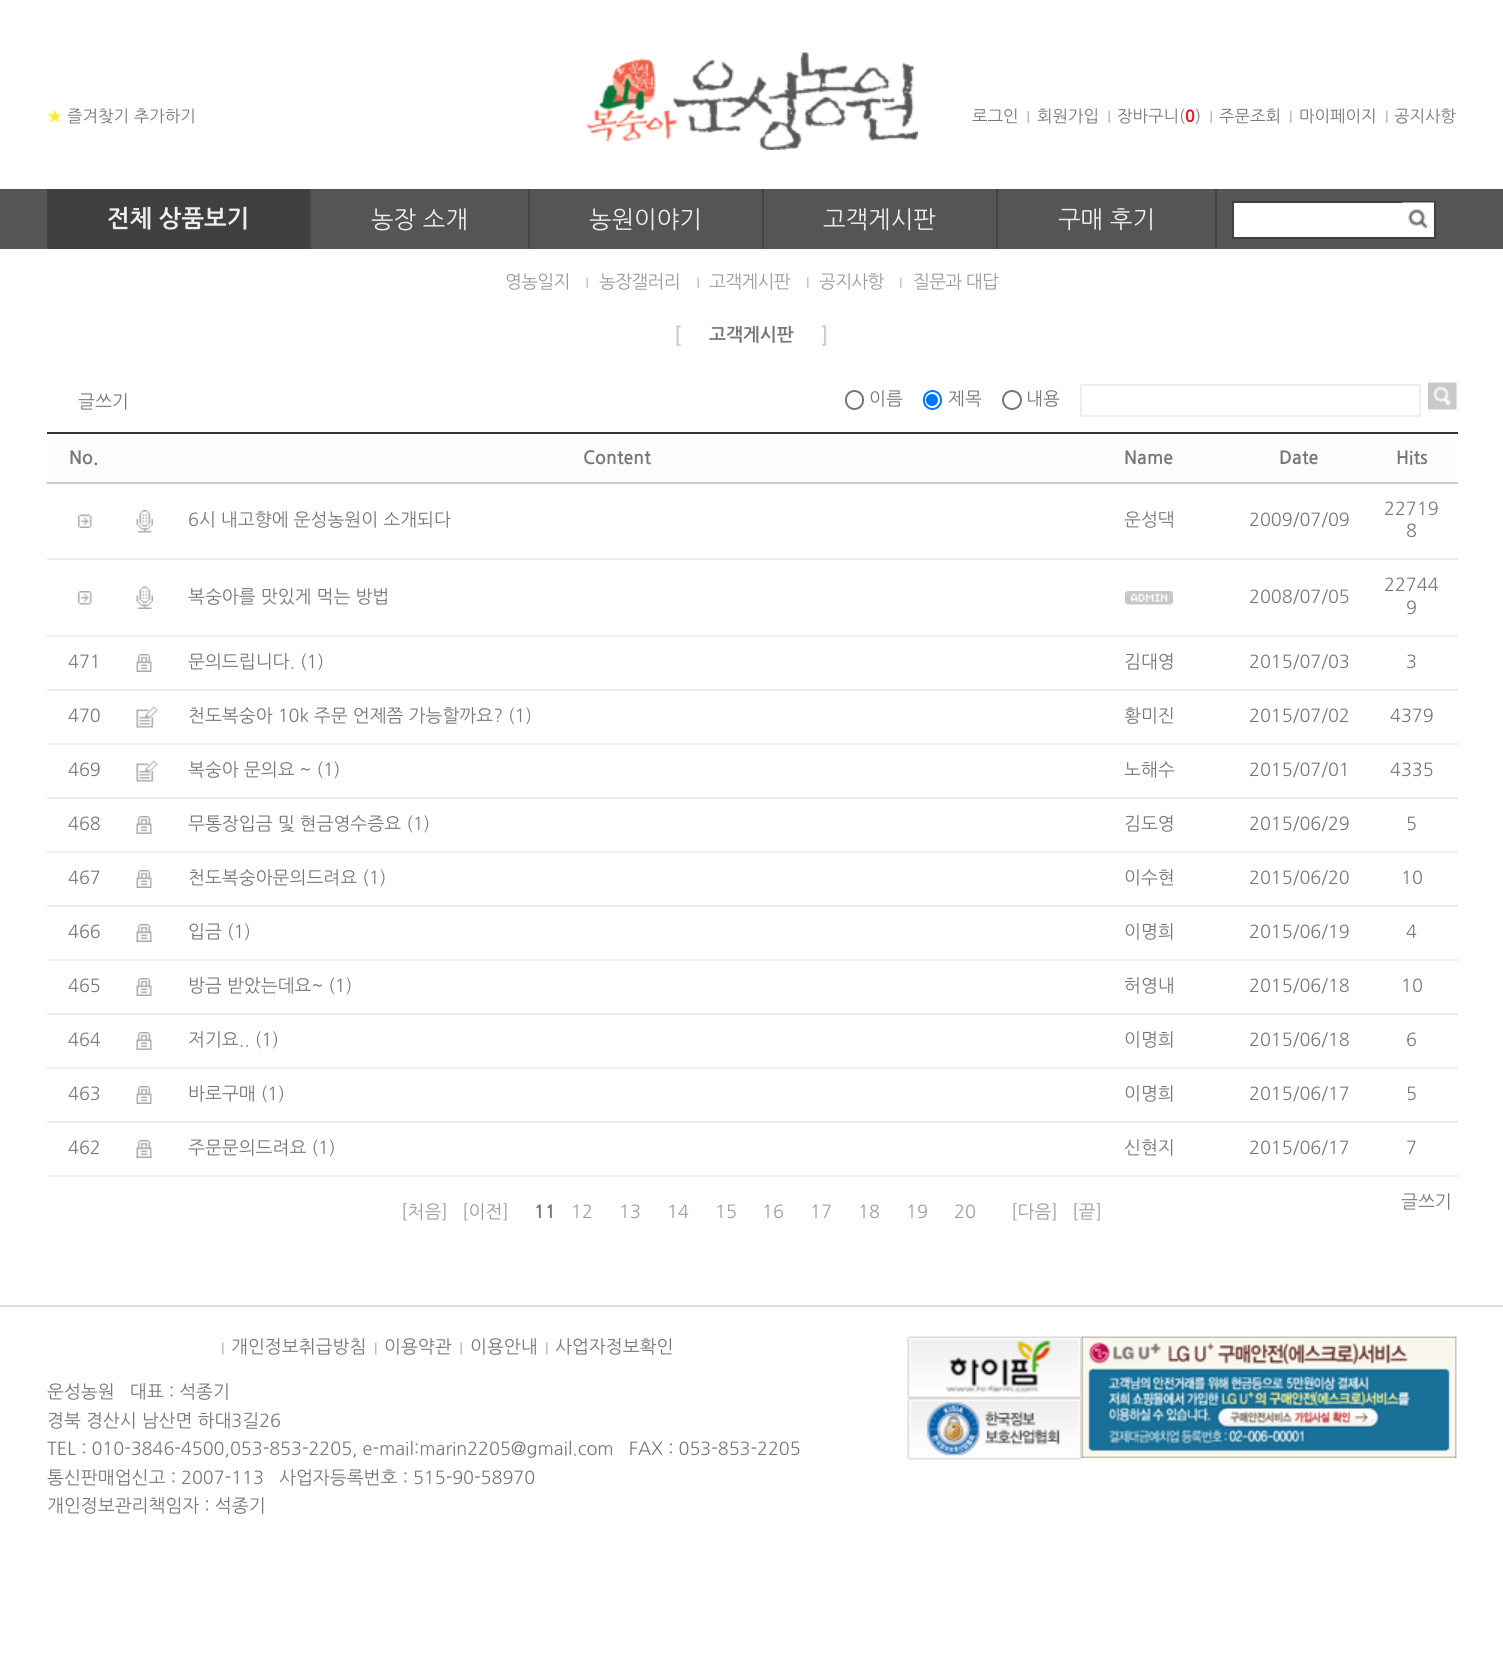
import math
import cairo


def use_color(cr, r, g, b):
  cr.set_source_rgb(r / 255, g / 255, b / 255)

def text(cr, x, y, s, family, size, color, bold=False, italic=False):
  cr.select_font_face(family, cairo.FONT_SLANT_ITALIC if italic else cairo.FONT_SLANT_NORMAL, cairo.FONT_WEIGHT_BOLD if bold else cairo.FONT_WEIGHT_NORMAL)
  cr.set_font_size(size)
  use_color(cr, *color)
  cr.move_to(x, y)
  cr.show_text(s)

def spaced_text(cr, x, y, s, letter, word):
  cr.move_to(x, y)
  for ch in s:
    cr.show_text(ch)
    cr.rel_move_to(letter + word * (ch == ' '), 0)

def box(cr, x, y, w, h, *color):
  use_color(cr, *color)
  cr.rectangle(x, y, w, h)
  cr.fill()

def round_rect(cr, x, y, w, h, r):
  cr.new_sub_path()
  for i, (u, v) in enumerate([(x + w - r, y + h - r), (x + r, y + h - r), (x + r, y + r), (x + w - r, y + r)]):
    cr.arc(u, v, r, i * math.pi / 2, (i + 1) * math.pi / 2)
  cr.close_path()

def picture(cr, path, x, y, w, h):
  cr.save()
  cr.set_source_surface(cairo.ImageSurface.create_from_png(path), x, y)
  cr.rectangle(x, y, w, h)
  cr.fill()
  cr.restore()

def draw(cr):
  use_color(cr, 255, 255, 255)
  cr.paint()
  picture(cr, "img_01.png", 586, 52, 332, 98)
  picture(cr, "img_02.png", 1027, 111, 2, 12)
  picture(cr, "img_02.png", 1108, 111, 2, 12)
  picture(cr, "img_02.png", 1210, 111, 2, 12)
  picture(cr, "img_03.png", 1290, 111, 2, 12)
  picture(cr, "img_03.png", 1386, 111, 2, 12)
  box(cr, 0, 189, 1503, 60, 85, 85, 85)
  box(cr, 47, 189, 262, 60, 64, 64, 64)
  box(cr, 309, 189, 2, 60, 69, 69, 69)
  box(cr, 528, 189, 2, 60, 69, 69, 69)
  box(cr, 762, 189, 2, 60, 69, 69, 69)
  box(cr, 996, 189, 2, 60, 69, 69, 69)
  box(cr, 1215, 189, 2, 60, 69, 69, 69)
  use_color(cr, 255, 255, 255)
  cr.rectangle(1233, 202, 202, 36)
  cr.fill_preserve()
  use_color(cr, 64, 64, 64)
  cr.stroke()
  picture(cr, "img_04.png", 1402, 202, 32, 27)
  picture(cr, "img_05.png", 586, 277, 2, 11)
  picture(cr, "img_05.png", 697, 277, 2, 11)
  picture(cr, "img_06.png", 807, 277, 2, 11)
  picture(cr, "img_06.png", 900, 277, 2, 11)
  round_rect(cr, 846, 391, 17, 18, 8.5)
  use_color(cr, 118, 118, 118)
  cr.stroke()
  round_rect(cr, 924, 391, 17, 18, 8.5)
  use_color(cr, 0, 117, 255)
  cr.stroke()
  cr.arc(932, 400, 6, 0, 2 * math.pi)
  cr.fill()
  cr.arc(1012, 400, 9, 0, 2 * math.pi)
  use_color(cr, 118, 118, 118)
  cr.stroke()
  cr.rectangle(1081, 385, 339, 31)
  use_color(cr, 237, 237, 237)
  cr.stroke()
  picture(cr, "img_07.png", 1428, 382, 29, 28)
  box(cr, 47, 434, 1410, 48, 252, 252, 252)
  box(cr, 47, 432, 1411, 2, 51, 51, 51)
  box(cr, 47, 482, 1411, 2, 204, 204, 204)
  picture(cr, "img_08.png", 78, 514, 14, 14)
  picture(cr, "img_09.png", 136, 510, 17, 23)
  box(cr, 47, 558, 1411, 2, 237, 237, 237)
  picture(cr, "img_10.png", 78, 591, 14, 14)
  picture(cr, "img_11.png", 136, 586, 17, 23)
  picture(cr, "img_12.png", 1125, 591, 48, 14)
  box(cr, 47, 635, 1411, 2, 237, 237, 237)
  picture(cr, "img_13.png", 136, 654, 16, 18)
  box(cr, 47, 689, 1411, 2, 237, 237, 237)
  picture(cr, "img_14.png", 136, 706, 22, 22)
  box(cr, 47, 743, 1411, 2, 237, 237, 237)
  picture(cr, "img_14.png", 136, 760, 22, 22)
  box(cr, 47, 797, 1411, 2, 237, 237, 237)
  picture(cr, "img_13.png", 136, 816, 16, 18)
  box(cr, 47, 851, 1411, 2, 237, 237, 237)
  picture(cr, "img_13.png", 136, 870, 16, 18)
  box(cr, 47, 905, 1411, 2, 237, 237, 237)
  picture(cr, "img_13.png", 136, 924, 16, 18)
  box(cr, 47, 959, 1411, 2, 237, 237, 237)
  picture(cr, "img_13.png", 136, 978, 16, 18)
  box(cr, 47, 1013, 1411, 2, 237, 237, 237)
  picture(cr, "img_13.png", 136, 1032, 16, 18)
  box(cr, 47, 1067, 1411, 2, 237, 237, 237)
  picture(cr, "img_13.png", 136, 1086, 16, 18)
  box(cr, 47, 1121, 1411, 2, 237, 237, 237)
  picture(cr, "img_13.png", 136, 1140, 16, 18)
  box(cr, 47, 1175, 1411, 2, 237, 237, 237)
  box(cr, 0, 1305, 1503, 2, 221, 221, 221)
  picture(cr, "img_15.png", 222, 1342, 2, 13)
  picture(cr, "img_15.png", 375, 1342, 2, 13)
  picture(cr, "img_16.png", 460, 1342, 2, 13)
  picture(cr, "img_15.png", 546, 1342, 2, 13)
  picture(cr, "img_17.png", 907, 1336, 175, 62)
  picture(cr, "img_18.png", 907, 1398, 175, 62)
  picture(cr, "img_19.png", 1081, 1336, 376, 122)
  text(cr, 47, 122, "★", "NanumGothic", 16.5, (255, 236, 42), bold=True)
  text(cr, 67, 122, "즐겨찾기 추가하기", "NanumGothic", 16.5, (119, 119, 119))
  text(cr, 972, 122, "로그인", "NanumGothic", 16.5, (119, 119, 119))
  text(cr, 1037, 122, "회원가입", "NanumGothic", 16.5, (119, 119, 119))
  text(cr, 1117, 122, "장바구니(", "NanumGothic", 16.5, (119, 119, 119))
  text(cr, 1185, 122, "0", "NanumGothic", 16.5, (248, 0, 18), bold=True)
  text(cr, 1195, 122, ")", "NanumGothic", 16.5, (119, 119, 119))
  text(cr, 1219, 122, "주문조회", "NanumGothic", 16.5, (119, 119, 119))
  text(cr, 1299, 122, "마이페이지", "NanumGothic", 16.5, (119, 119, 119))
  text(cr, 1394, 122, "공지사항", "NanumGothic", 16.5, (119, 119, 119))
  text(cr, 107, 227, "전체 상품보기", "NanumGothic", 24, (238, 238, 238), bold=True)
  text(cr, 371, 228, "농장 소개", "NanumGothic", 24, (238, 238, 238))
  text(cr, 589, 228, "농원이야기", "NanumGothic", 24, (238, 238, 238))
  text(cr, 823, 228, "고객게시판", "NanumGothic", 24, (238, 238, 238))
  text(cr, 1058, 228, "구매 후기", "NanumGothic", 24, (238, 238, 238))
  cr.set_font_size(18)
  use_color(cr, 156, 156, 156)
  spaced_text(cr, 505, 288, "영농일지", -0.75, 0)
  spaced_text(cr, 599, 288, "농장갤러리", -0.75, 0)
  spaced_text(cr, 709, 288, "고객게시판", -0.75, 0)
  spaced_text(cr, 819, 288, "공지사항", -0.75, 0)
  spaced_text(cr, 913, 288, "질문과 대답", -0.75, 0)
  text(cr, 674, 343, "[", "NanumGothic", 21, (207, 207, 207), bold=True)
  text(cr, 709, 341, "고객게시판", "NanumGothic", 18, (119, 119, 119), bold=True)
  text(cr, 821, 343, "]", "NanumGothic", 21, (207, 207, 207), bold=True)
  text(cr, 78, 408, "글쓰기", "NanumGothic", 18, (119, 119, 119))
  text(cr, 869, 405, "이름", "NanumGothic", 18, (119, 119, 119))
  text(cr, 948, 405, "제목", "NanumGothic", 18, (119, 119, 119))
  text(cr, 1026, 405, "내용", "NanumGothic", 18, (119, 119, 119))
  text(cr, 69, 464, "No.", "NanumGothic", 18, (119, 119, 119), bold=True)
  text(cr, 583, 464, "Content", "NanumGothic", 18, (119, 119, 119), bold=True)
  text(cr, 1124, 464, "Name", "NanumGothic", 18, (119, 119, 119), bold=True)
  text(cr, 1279, 464, "Date", "NanumGothic", 18, (119, 119, 119), bold=True)
  text(cr, 1396, 464, "Hits", "NanumGothic", 18, (119, 119, 119), bold=True)
  text(cr, 188, 526, "6시 내고향에 운성농원이 소개되다", "NanumGothic", 18, (119, 119, 119))
  text(cr, 1124, 526, "운성댁", "NanumGothic", 18, (119, 119, 119))
  text(cr, 1249, 526, "2009/07/09", "NanumGothic", 18, (119, 119, 119))
  text(cr, 1384, 515, "22719", "NanumGothic", 18, (119, 119, 119))
  text(cr, 1406, 537, "8", "NanumGothic", 18, (119, 119, 119))
  text(cr, 188, 603, "복숭아를 맛있게 먹는 방법", "NanumGothic", 18, (119, 119, 119))
  text(cr, 1249, 603, "2008/07/05", "NanumGothic", 18, (119, 119, 119))
  text(cr, 1384, 591, "22744", "NanumGothic", 18, (119, 119, 119))
  text(cr, 1406, 614, "9", "NanumGothic", 18, (119, 119, 119))
  text(cr, 68, 668, "471", "NanumGothic", 18, (119, 119, 119))
  text(cr, 188, 668, "문의드립니다. (1)", "NanumGothic", 18, (119, 119, 119))
  text(cr, 1124, 668, "김대영", "NanumGothic", 18, (119, 119, 119))
  text(cr, 1249, 668, "2015/07/03", "NanumGothic", 18, (119, 119, 119))
  text(cr, 1406, 668, "3", "NanumGothic", 18, (119, 119, 119))
  text(cr, 68, 722, "470", "NanumGothic", 18, (119, 119, 119))
  text(cr, 188, 722, "천도복숭아 10k 주문 언제쯤 가능할까요? (1)", "NanumGothic", 18, (119, 119, 119))
  text(cr, 1124, 722, "황미진", "NanumGothic", 18, (119, 119, 119))
  text(cr, 1249, 722, "2015/07/02", "NanumGothic", 18, (119, 119, 119))
  text(cr, 1390, 722, "4379", "NanumGothic", 18, (119, 119, 119))
  text(cr, 68, 776, "469", "NanumGothic", 18, (119, 119, 119))
  text(cr, 188, 776, "복숭아 문의요 ~ (1)", "NanumGothic", 18, (119, 119, 119))
  text(cr, 1124, 776, "노해수", "NanumGothic", 18, (119, 119, 119))
  text(cr, 1249, 776, "2015/07/01", "NanumGothic", 18, (119, 119, 119))
  text(cr, 1390, 776, "4335", "NanumGothic", 18, (119, 119, 119))
  text(cr, 68, 830, "468", "NanumGothic", 18, (119, 119, 119))
  text(cr, 188, 830, "무통장입금 및 현금영수증요 (1)", "NanumGothic", 18, (119, 119, 119))
  text(cr, 1124, 830, "김도영", "NanumGothic", 18, (119, 119, 119))
  text(cr, 1249, 830, "2015/06/29", "NanumGothic", 18, (119, 119, 119))
  text(cr, 1406, 830, "5", "NanumGothic", 18, (119, 119, 119))
  text(cr, 68, 884, "467", "NanumGothic", 18, (119, 119, 119))
  text(cr, 188, 884, "천도복숭아문의드려요 (1)", "NanumGothic", 18, (119, 119, 119))
  text(cr, 1124, 884, "이수현", "NanumGothic", 18, (119, 119, 119))
  text(cr, 1249, 884, "2015/06/20", "NanumGothic", 18, (119, 119, 119))
  text(cr, 1401, 884, "10", "NanumGothic", 18, (119, 119, 119))
  text(cr, 68, 938, "466", "NanumGothic", 18, (119, 119, 119))
  text(cr, 188, 938, "입금 (1)", "NanumGothic", 18, (119, 119, 119))
  text(cr, 1124, 938, "이명희", "NanumGothic", 18, (119, 119, 119))
  text(cr, 1249, 938, "2015/06/19", "NanumGothic", 18, (119, 119, 119))
  text(cr, 1406, 938, "4", "NanumGothic", 18, (119, 119, 119))
  text(cr, 68, 992, "465", "NanumGothic", 18, (119, 119, 119))
  text(cr, 188, 992, "방금 받았는데요~ (1)", "NanumGothic", 18, (119, 119, 119))
  text(cr, 1124, 992, "허영내", "NanumGothic", 18, (119, 119, 119))
  text(cr, 1249, 992, "2015/06/18", "NanumGothic", 18, (119, 119, 119))
  text(cr, 1401, 992, "10", "NanumGothic", 18, (119, 119, 119))
  text(cr, 68, 1046, "464", "NanumGothic", 18, (119, 119, 119))
  text(cr, 188, 1046, "저기요.. (1)", "NanumGothic", 18, (119, 119, 119))
  text(cr, 1124, 1046, "이명희", "NanumGothic", 18, (119, 119, 119))
  text(cr, 1249, 1046, "2015/06/18", "NanumGothic", 18, (119, 119, 119))
  text(cr, 1406, 1046, "6", "NanumGothic", 18, (119, 119, 119))
  text(cr, 68, 1100, "463", "NanumGothic", 18, (119, 119, 119))
  text(cr, 188, 1100, "바로구매 (1)", "NanumGothic", 18, (119, 119, 119))
  text(cr, 1124, 1100, "이명희", "NanumGothic", 18, (119, 119, 119))
  text(cr, 1249, 1100, "2015/06/17", "NanumGothic", 18, (119, 119, 119))
  text(cr, 1406, 1100, "5", "NanumGothic", 18, (119, 119, 119))
  text(cr, 68, 1154, "462", "NanumGothic", 18, (119, 119, 119))
  text(cr, 188, 1154, "주문문의드려요 (1)", "NanumGothic", 18, (119, 119, 119))
  text(cr, 1124, 1154, "신현지", "NanumGothic", 18, (119, 119, 119))
  text(cr, 1249, 1154, "2015/06/17", "NanumGothic", 18, (119, 119, 119))
  text(cr, 1406, 1154, "7", "NanumGothic", 18, (119, 119, 119))
  text(cr, 401, 1218, "[처음]", "NanumGothic", 18, (156, 156, 156))
  text(cr, 462, 1218, "[이전]", "NanumGothic", 18, (156, 156, 156))
  text(cr, 534, 1218, "11", "NanumGothic", 18, (119, 119, 119), bold=True)
  text(cr, 571, 1218, "12", "NanumGothic", 18, (156, 156, 156))
  text(cr, 619, 1218, "13", "NanumGothic", 18, (156, 156, 156))
  text(cr, 667, 1218, "14", "NanumGothic", 18, (156, 156, 156))
  text(cr, 715, 1218, "15", "NanumGothic", 18, (156, 156, 156))
  text(cr, 762, 1218, "16", "NanumGothic", 18, (156, 156, 156))
  text(cr, 810, 1218, "17", "NanumGothic", 18, (156, 156, 156))
  text(cr, 858, 1218, "18", "NanumGothic", 18, (156, 156, 156))
  text(cr, 906, 1218, "19", "NanumGothic", 18, (156, 156, 156))
  text(cr, 954, 1218, "20", "NanumGothic", 18, (156, 156, 156))
  text(cr, 1011, 1218, "[다음]", "NanumGothic", 18, (156, 156, 156))
  text(cr, 1072, 1218, "[끝]", "NanumGothic", 18, (156, 156, 156))
  text(cr, 1401, 1208, "글쓰기", "NanumGothic", 18, (119, 119, 119))
  text(cr, 231, 1353, "개인정보취급방침", "NanumGothic", 18, (119, 119, 119))
  text(cr, 384, 1353, "이용약관", "NanumGothic", 18, (119, 119, 119))
  text(cr, 470, 1353, "이용안내", "NanumGothic", 18, (119, 119, 119))
  text(cr, 555, 1353, "사업자정보확인", "NanumGothic", 18, (119, 119, 119))
  text(cr, 47, 1398, "운성농원   대표 : 석종기", "NanumGothic", 18, (119, 119, 119))
  text(cr, 47, 1427, "경북 경산시 남산면 하대3길26", "NanumGothic", 18, (119, 119, 119))
  text(cr, 47, 1455, "TEL : 010-3846-4500,053-853-2205, e-mail:marin2205@gmail.com   FAX : 053-853-2205", "NanumGothic", 18, (119, 119, 119))
  text(cr, 47, 1484, "통신판매업신고 : 2007-113   사업자등록번호 : 515-90-58970", "NanumGothic", 18, (119, 119, 119))
  text(cr, 47, 1512, "개인정보관리책임자 : 석종기", "NanumGothic", 18, (119, 119, 119))


surface = cairo.ImageSurface(cairo.FORMAT_RGB24, 1503, 1676)
cr = cairo.Context(surface)
options = cairo.FontOptions()
options.set_hint_metrics(cairo.HINT_METRICS_OFF)
options.set_hint_style(cairo.HINT_STYLE_NONE)
cr.set_font_options(options)
cr.set_miter_limit(4)
draw(cr)
surface.write_to_png("out.png")
